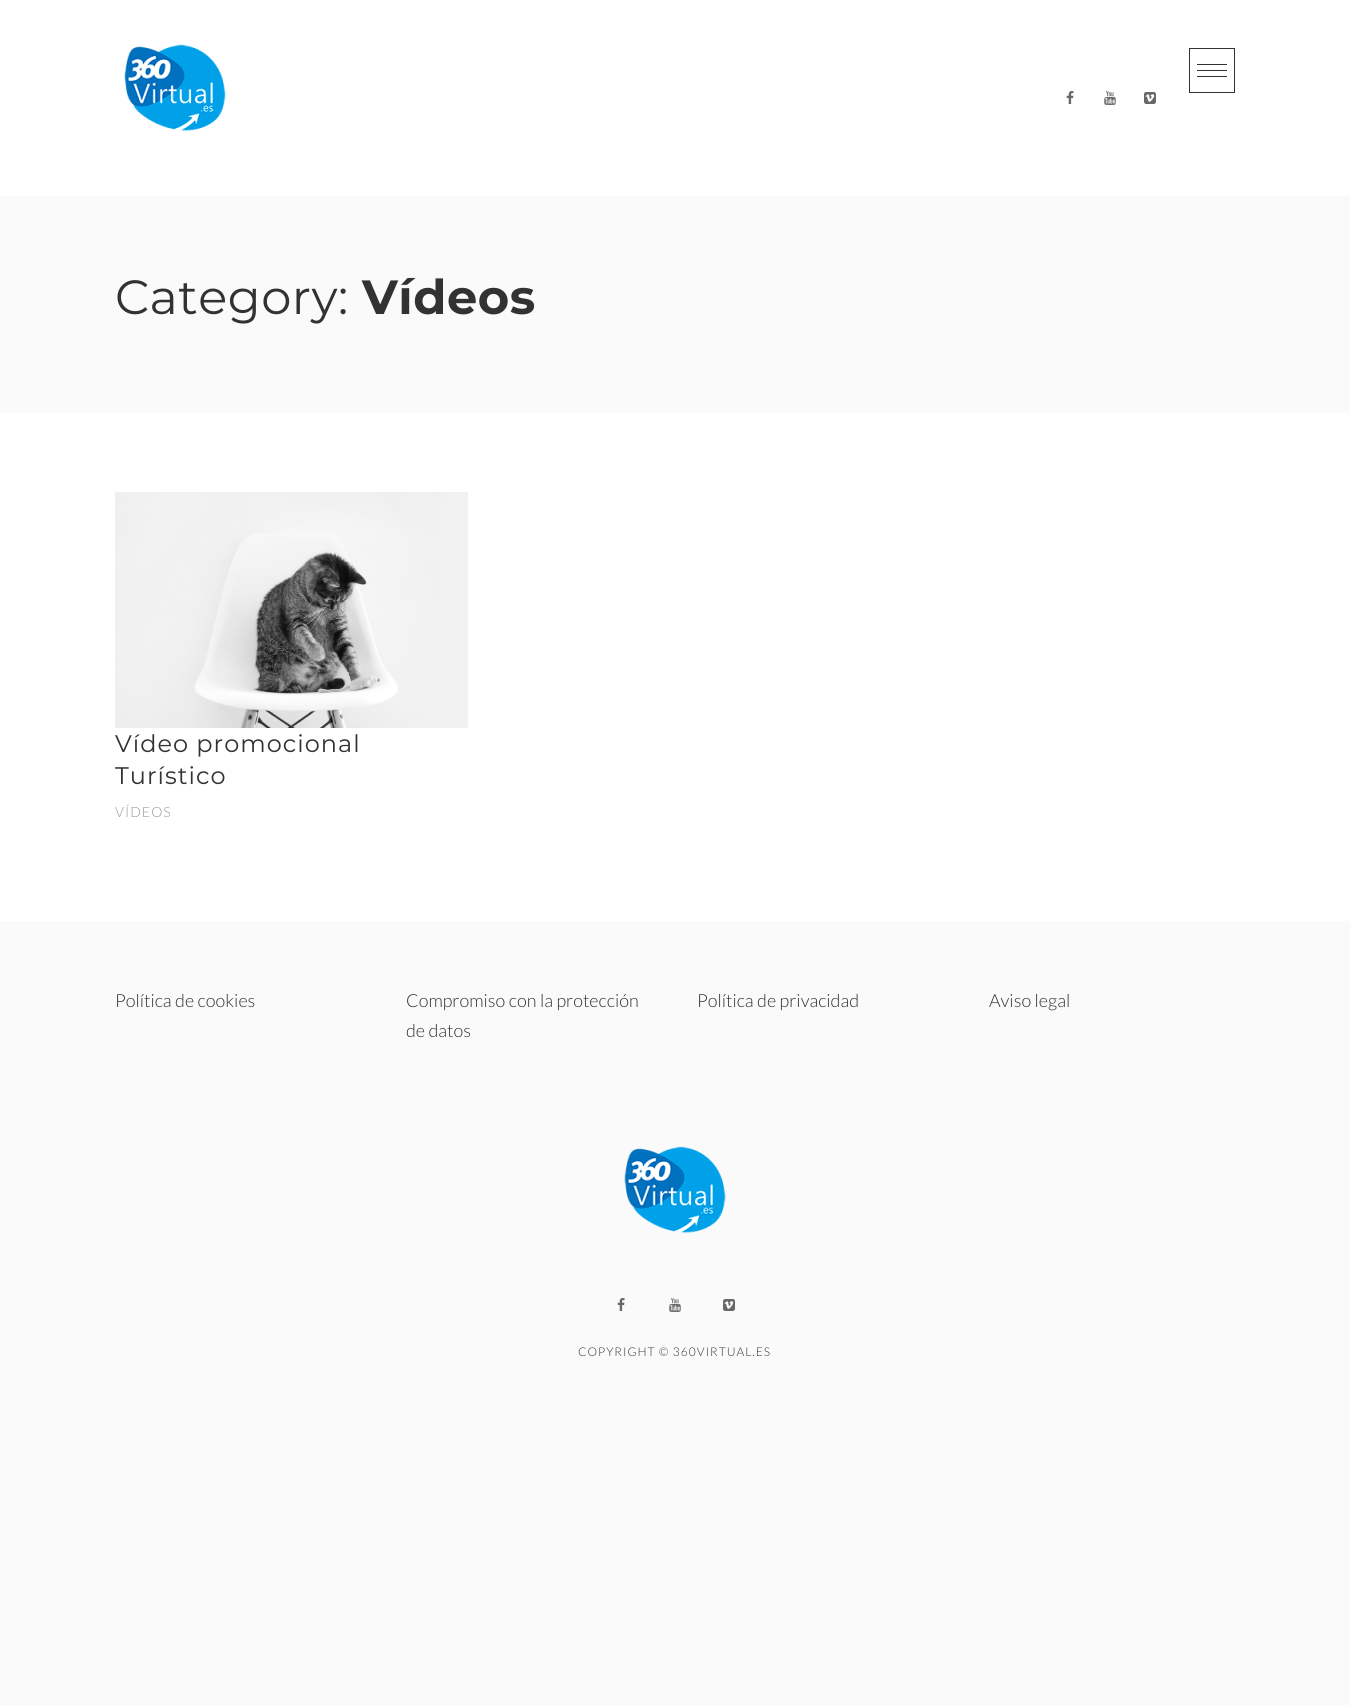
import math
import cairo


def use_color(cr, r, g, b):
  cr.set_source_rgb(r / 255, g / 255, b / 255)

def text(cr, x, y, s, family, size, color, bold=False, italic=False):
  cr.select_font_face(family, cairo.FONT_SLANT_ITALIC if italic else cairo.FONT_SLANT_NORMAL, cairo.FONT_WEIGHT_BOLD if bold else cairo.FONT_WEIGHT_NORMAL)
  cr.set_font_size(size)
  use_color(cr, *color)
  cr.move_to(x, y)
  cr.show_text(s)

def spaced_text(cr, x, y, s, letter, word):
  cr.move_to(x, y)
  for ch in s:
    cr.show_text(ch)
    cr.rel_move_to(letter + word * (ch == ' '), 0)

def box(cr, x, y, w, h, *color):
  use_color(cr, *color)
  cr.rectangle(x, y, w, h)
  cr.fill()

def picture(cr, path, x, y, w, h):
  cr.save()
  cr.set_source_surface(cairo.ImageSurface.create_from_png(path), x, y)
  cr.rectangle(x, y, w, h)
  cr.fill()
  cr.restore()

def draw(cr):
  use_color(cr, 250, 250, 250)
  cr.paint()
  box(cr, 0, 0, 1350, 921, 255, 255, 255)
  picture(cr, "img_01.png", 124, 44, 102, 87)
  cr.rectangle(1189.5, 48.5, 45, 44)
  use_color(cr, 50, 50, 50)
  cr.set_line_width(1)
  cr.stroke()
  box(cr, 1197, 64, 30, 1, 50, 50, 50)
  box(cr, 1197, 70, 30, 1, 50, 50, 50)
  box(cr, 1197, 76, 30, 1, 50, 50, 50)
  picture(cr, "img_02.png", 1066, 91, 8, 13)
  picture(cr, "img_03.png", 1104, 91, 12, 14)
  picture(cr, "img_04.png", 1144, 92, 12, 12)
  box(cr, 0, 196, 1350, 217, 250, 250, 250)
  picture(cr, "img_05.png", 115, 492, 353, 236)
  picture(cr, "img_06.png", 624, 1146, 102, 87)
  picture(cr, "img_07.png", 617, 1298, 8, 13)
  picture(cr, "img_08.png", 669, 1298, 12, 14)
  picture(cr, "img_09.png", 723, 1299, 12, 12)
  cr.select_font_face("Montserrat")
  cr.set_font_size(48)
  use_color(cr, 50, 50, 50)
  spaced_text(cr, 115, 314, "Category:", 0.5, 0)
  cr.select_font_face("Montserrat", cairo.FONT_SLANT_NORMAL, cairo.FONT_WEIGHT_BOLD)
  spaced_text(cr, 362, 314, "Vídeos", 0.5, 0)
  cr.select_font_face("Montserrat")
  cr.set_font_size(24)
  spaced_text(cr, 115, 752, "Vídeo promocional", 1, 0)
  spaced_text(cr, 115, 784, "Turístico", 1, 0)
  cr.select_font_face("Lato Light")
  cr.set_font_size(14)
  use_color(cr, 153, 153, 153)
  spaced_text(cr, 115, 817, "VÍDEOS", 1, 0)
  text(cr, 115, 1007, "Política de cookies", "Lato Light", 18, (50, 50, 50))
  text(cr, 406, 1007, "Compromiso con la protección", "Lato Light", 18, (50, 50, 50))
  text(cr, 406, 1037, "de datos", "Lato Light", 18, (50, 50, 50))
  text(cr, 697, 1007, "Política de privacidad", "Lato Light", 18, (50, 50, 50))
  text(cr, 989, 1007, "Aviso legal", "Lato Light", 18, (50, 50, 50))
  cr.set_font_size(12)
  spaced_text(cr, 578, 1356, "COPYRIGHT © 360VIRTUAL.ES", 1, 0)


surface = cairo.ImageSurface(cairo.FORMAT_RGB24, 1350, 1705)
cr = cairo.Context(surface)
options = cairo.FontOptions()
options.set_hint_metrics(cairo.HINT_METRICS_OFF)
options.set_hint_style(cairo.HINT_STYLE_NONE)
cr.set_font_options(options)
cr.set_miter_limit(4)
draw(cr)
surface.write_to_png("out.png")
